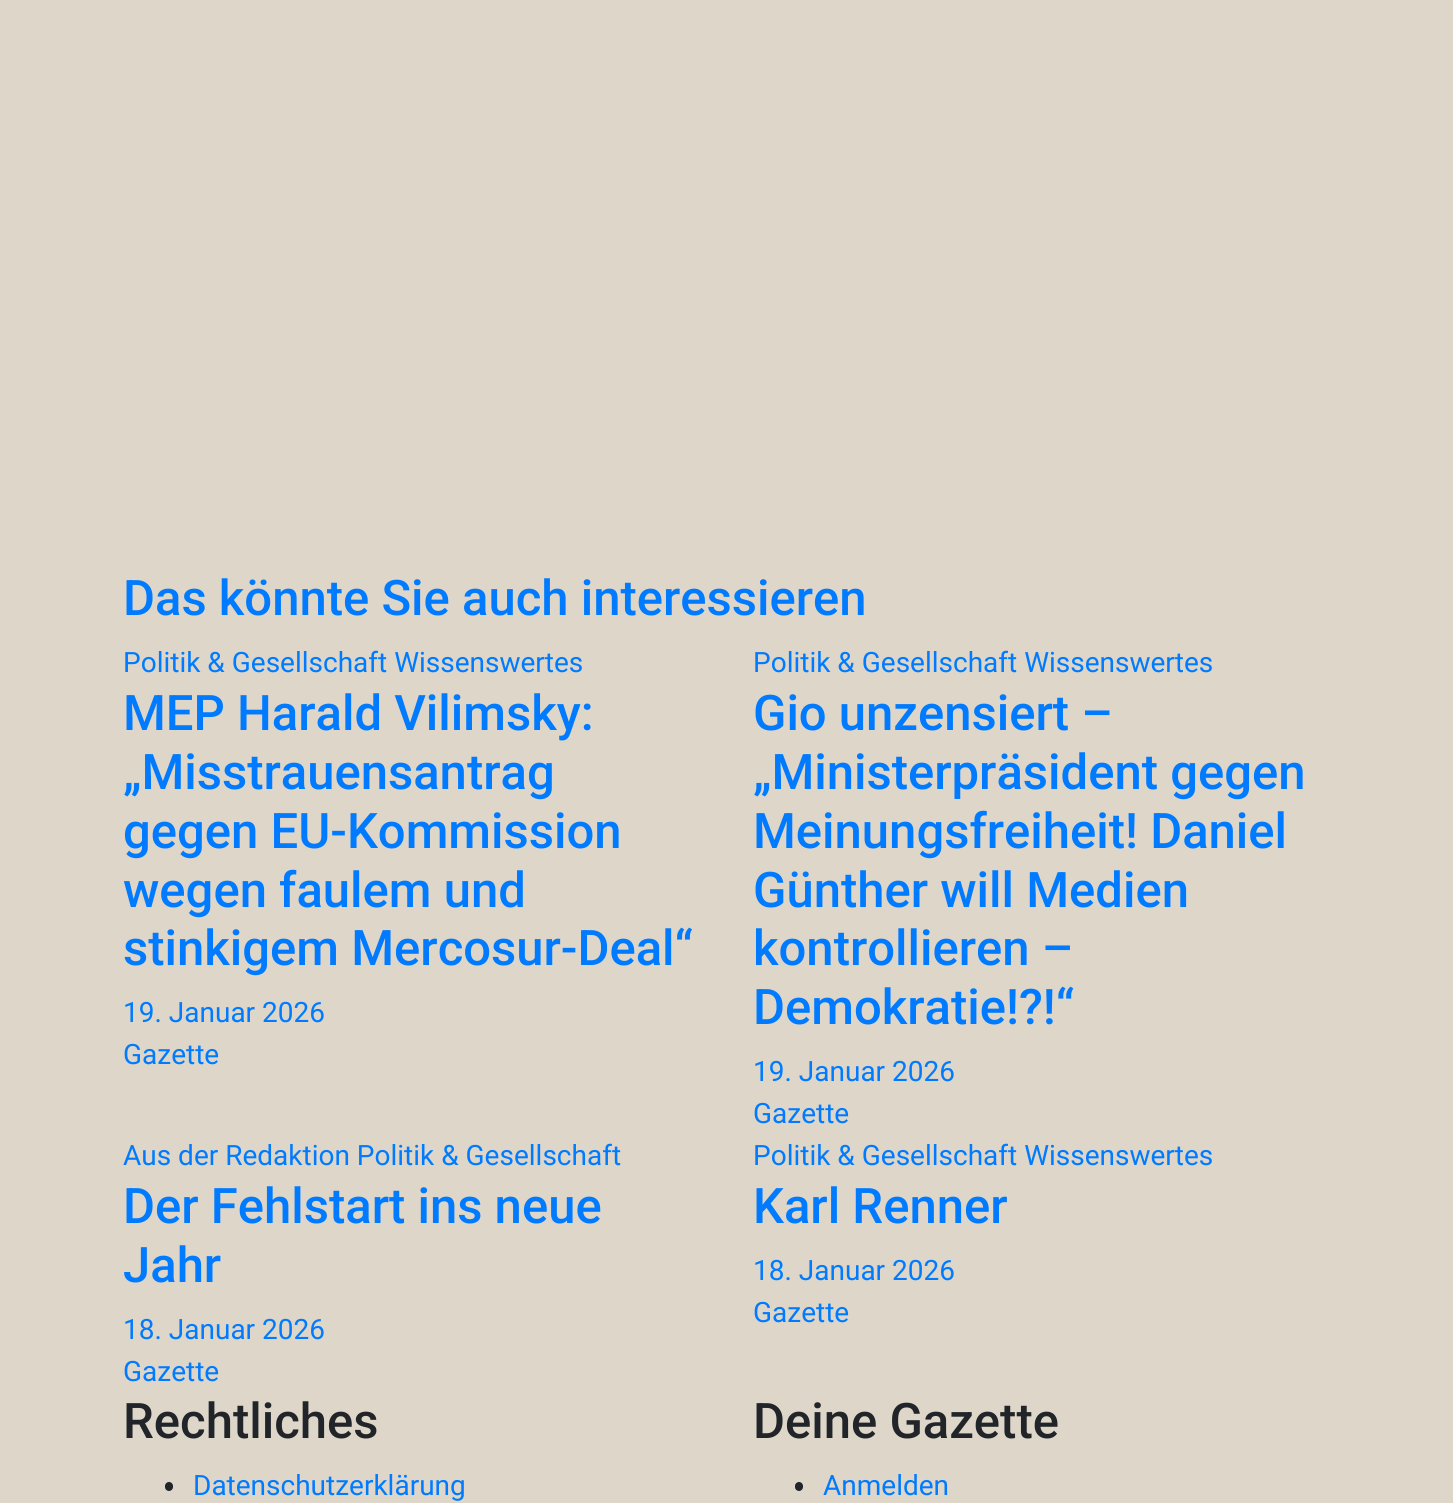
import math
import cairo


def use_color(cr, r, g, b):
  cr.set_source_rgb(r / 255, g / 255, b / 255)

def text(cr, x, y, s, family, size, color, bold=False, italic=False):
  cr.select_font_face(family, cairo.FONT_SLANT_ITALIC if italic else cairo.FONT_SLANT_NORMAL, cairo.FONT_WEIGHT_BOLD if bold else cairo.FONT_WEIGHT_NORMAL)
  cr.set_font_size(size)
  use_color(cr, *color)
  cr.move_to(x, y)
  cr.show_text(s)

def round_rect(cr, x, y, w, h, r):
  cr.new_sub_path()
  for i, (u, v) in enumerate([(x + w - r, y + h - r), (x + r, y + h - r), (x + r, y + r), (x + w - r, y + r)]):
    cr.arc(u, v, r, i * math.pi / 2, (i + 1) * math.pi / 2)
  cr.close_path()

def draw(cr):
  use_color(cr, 221, 214, 201)
  cr.paint()
  use_color(cr, 33, 37, 41)
  round_rect(cr, 165, 1482, 8, 9, 4)
  cr.fill()
  round_rect(cr, 795, 1482, 8, 9, 4)
  cr.fill()
  text(cr, 123, 615, "Das könnte Sie auch interessieren", "Roboto Medium", 49, (0, 123, 255))
  text(cr, 123, 672, "Politik & Gesellschaft Wissenswertes", "Roboto", 28, (0, 123, 255))
  text(cr, 123, 730, "MEP Harald Vilimsky:", "Roboto Medium", 49, (0, 123, 255))
  text(cr, 123, 789, "„Misstrauensantrag", "Roboto Medium", 49, (0, 123, 255))
  text(cr, 123, 848, "gegen EU-Kommission", "Roboto Medium", 49, (0, 123, 255))
  text(cr, 123, 907, "wegen faulem und", "Roboto Medium", 49, (0, 123, 255))
  text(cr, 123, 965, "stinkigem Mercosur-Deal“", "Roboto Medium", 49, (0, 123, 255))
  text(cr, 123, 1022, "19. Januar 2026", "Roboto", 28, (0, 123, 255))
  text(cr, 123, 1064, "Gazette", "Roboto", 28, (0, 123, 255))
  text(cr, 753, 672, "Politik & Gesellschaft Wissenswertes", "Roboto", 28, (0, 123, 255))
  text(cr, 753, 730, "Gio unzensiert –", "Roboto Medium", 49, (0, 123, 255))
  text(cr, 753, 789, "„Ministerpräsident gegen", "Roboto Medium", 49, (0, 123, 255))
  text(cr, 753, 848, "Meinungsfreiheit! Daniel", "Roboto Medium", 49, (0, 123, 255))
  text(cr, 753, 907, "Günther will Medien", "Roboto Medium", 49, (0, 123, 255))
  text(cr, 753, 965, "kontrollieren –", "Roboto Medium", 49, (0, 123, 255))
  text(cr, 753, 1024, "Demokratie!?!“", "Roboto Medium", 49, (0, 123, 255))
  text(cr, 753, 1081, "19. Januar 2026", "Roboto", 28, (0, 123, 255))
  text(cr, 753, 1123, "Gazette", "Roboto", 28, (0, 123, 255))
  text(cr, 123, 1165, "Aus der Redaktion Politik & Gesellschaft", "Roboto", 28, (0, 123, 255))
  text(cr, 123, 1223, "Der Fehlstart ins neue", "Roboto Medium", 49, (0, 123, 255))
  text(cr, 123, 1282, "Jahr", "Roboto Medium", 49, (0, 123, 255))
  text(cr, 123, 1339, "18. Januar 2026", "Roboto", 28, (0, 123, 255))
  text(cr, 123, 1381, "Gazette", "Roboto", 28, (0, 123, 255))
  text(cr, 753, 1165, "Politik & Gesellschaft Wissenswertes", "Roboto", 28, (0, 123, 255))
  text(cr, 753, 1223, "Karl Renner", "Roboto Medium", 49, (0, 123, 255))
  text(cr, 753, 1280, "18. Januar 2026", "Roboto", 28, (0, 123, 255))
  text(cr, 753, 1322, "Gazette", "Roboto", 28, (0, 123, 255))
  text(cr, 123, 1438, "Rechtliches", "Roboto Medium", 49, (33, 37, 41))
  text(cr, 193, 1495, "Datenschutzerklärung", "Roboto", 28, (0, 123, 255))
  text(cr, 753, 1438, "Deine Gazette", "Roboto Medium", 49, (33, 37, 41))
  text(cr, 823, 1495, "Anmelden", "Roboto", 28, (0, 123, 255))


surface = cairo.ImageSurface(cairo.FORMAT_RGB24, 1453, 1503)
cr = cairo.Context(surface)
options = cairo.FontOptions()
options.set_hint_metrics(cairo.HINT_METRICS_OFF)
options.set_hint_style(cairo.HINT_STYLE_NONE)
cr.set_font_options(options)
cr.set_miter_limit(4)
draw(cr)
surface.write_to_png("out.png")
